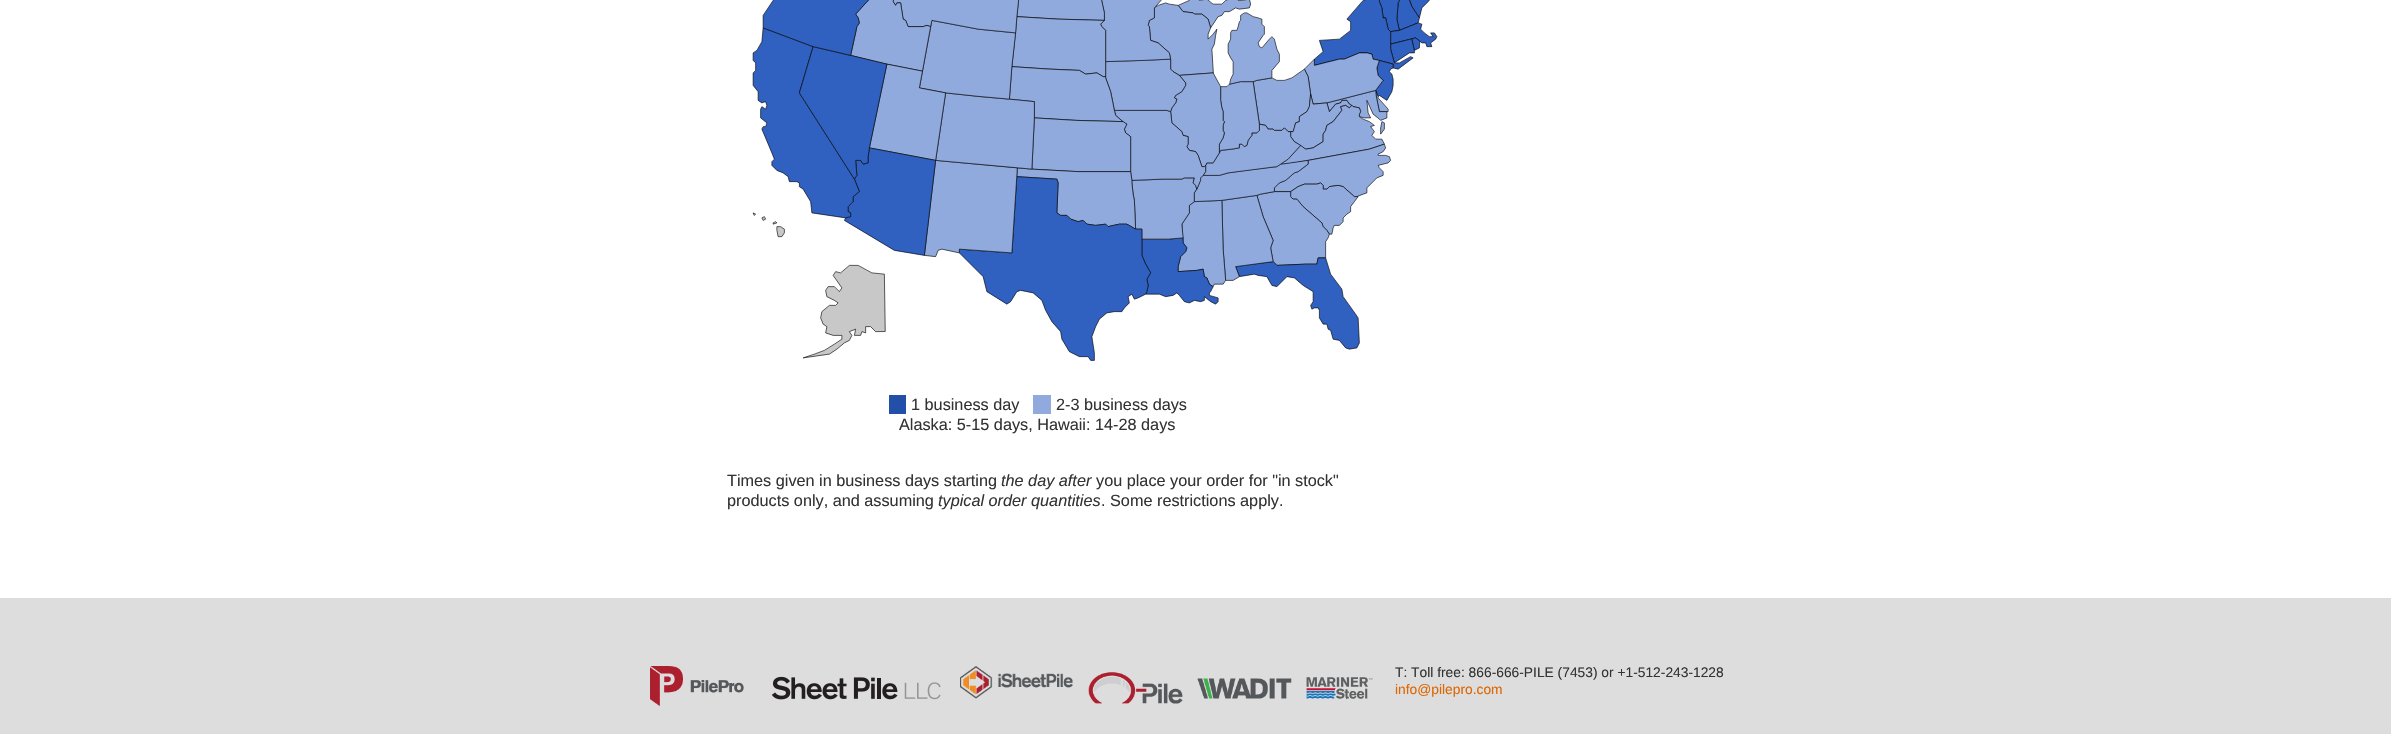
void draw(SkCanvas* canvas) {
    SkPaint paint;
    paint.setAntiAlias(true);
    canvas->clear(0xFFFFFFFF);
    canvas->drawImageRect(SkImages::DeferredFromEncodedData(SkData::MakeFromFileName("img1.png")), SkRect::MakeXYWH(752, 0, 686, 361), SkSamplingOptions());
    paint.setColor(0xFF2250A9);
    canvas->drawRect(SkRect::MakeXYWH(889, 395, 17, 19), paint);
    SkFont font1(fontMgr->matchFamilyStyle("Liberation Sans", SkFontStyle::Normal()), 16.25f);
    font1.setSubpixel(true);
    paint.setColor(0xFF333333);
    canvas->drawString("1 business day", 911, 410, font1, paint);
    paint.setColor(0xFF90AADE);
    canvas->drawRect(SkRect::MakeXYWH(1033, 395, 18, 19), paint);
    paint.setColor(0xFF333333);
    canvas->drawString("2-3 business days", 1056, 410, font1, paint);
    canvas->drawString("Alaska: 5-15 days, Hawaii: 14-28 days", 899, 430, font1, paint);
    canvas->drawString("Times given in business days starting", 727, 486, font1, paint);
    SkFont font2(fontMgr->matchFamilyStyle("Liberation Sans", SkFontStyle::Italic()), 16.25f);
    font2.setSubpixel(true);
    canvas->drawString("the day after", 1001, 486, font2, paint);
    canvas->drawString("you place your order for \"in stock\"", 1096, 486, font1, paint);
    canvas->drawString("products only, and assuming", 727, 506, font1, paint);
    canvas->drawString("typical order quantities", 938, 506, font2, paint);
    canvas->drawString(". Some restrictions apply.", 1101, 506, font1, paint);
    paint.setColor(0xFFDDDDDD);
    canvas->drawRect(SkRect::MakeXYWH(0, 598, 2391, 136), paint);
    canvas->drawImageRect(SkImages::DeferredFromEncodedData(SkData::MakeFromFileName("img2.png")), SkRect::MakeXYWH(650, 666, 94, 40), SkSamplingOptions());
    canvas->drawImageRect(SkImages::DeferredFromEncodedData(SkData::MakeFromFileName("img3.png")), SkRect::MakeXYWH(771, 676, 170, 24), SkSamplingOptions());
    canvas->drawImageRect(SkImages::DeferredFromEncodedData(SkData::MakeFromFileName("img4.png")), SkRect::MakeXYWH(960, 666, 113, 33), SkSamplingOptions());
    canvas->drawImageRect(SkImages::DeferredFromEncodedData(SkData::MakeFromFileName("img5.png")), SkRect::MakeXYWH(1088, 672, 95, 32), SkSamplingOptions());
    canvas->drawImageRect(SkImages::DeferredFromEncodedData(SkData::MakeFromFileName("img6.png")), SkRect::MakeXYWH(1197, 678, 95, 21), SkSamplingOptions());
    canvas->drawImageRect(SkImages::DeferredFromEncodedData(SkData::MakeFromFileName("img7.png")), SkRect::MakeXYWH(1306, 677, 67, 22), SkSamplingOptions());
    SkFont font3(fontMgr->matchFamilyStyle("Liberation Sans", SkFontStyle::Normal()), 13.8f);
    font3.setSubpixel(true);
    paint.setColor(0xFF333333);
    canvas->drawString("T: Toll free: 866-666-PILE (7453) or +1-512-243-1228", 1395, 677, font3, paint);
    paint.setColor(0xFFDD6600);
    canvas->drawString("info@pilepro.com", 1395, 694, font3, paint);
}
